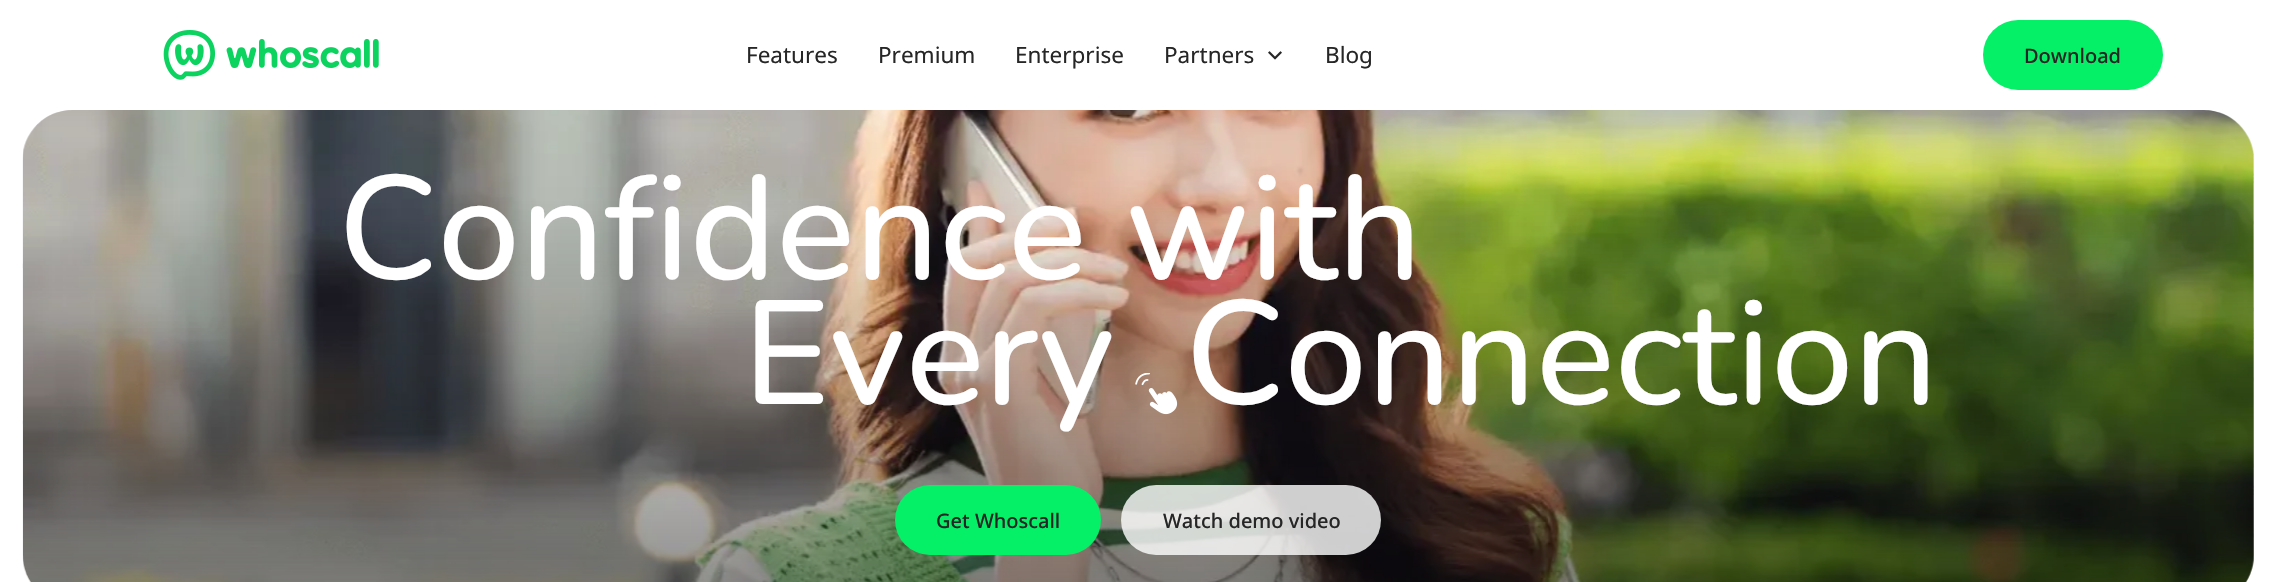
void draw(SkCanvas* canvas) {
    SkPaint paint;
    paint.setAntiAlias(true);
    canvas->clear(0xFFFFFFFF);
    canvas->drawImageRect(SkImages::DeferredFromEncodedData(SkData::MakeFromFileName("img1.png")), SkRect::MakeXYWH(163, 30, 216, 50), SkSamplingOptions());
    SkFont font1(fontMgr->matchFamilyStyle("Noto Sans", SkFontStyle::Normal()), 22.5f);
    font1.setSubpixel(true);
    paint.setColor(0xFF262626);
    canvas->drawString("Features", 746, 63, font1, paint);
    canvas->drawString("Premium", 878, 63, font1, paint);
    canvas->drawString("Enterprise", 1015, 63, font1, paint);
    canvas->drawString("Partners", 1164, 63, font1, paint);
    canvas->drawImageRect(SkImages::DeferredFromEncodedData(SkData::MakeFromFileName("img2.png")), SkRect::MakeXYWH(1268, 51, 14, 9), SkSamplingOptions());
    canvas->drawString("Blog", 1325, 63, font1, paint);
    paint.setColor(0xFF05F067);
    canvas->drawRoundRect(SkRect::MakeXYWH(1983, 20, 180, 70), 35, 35, paint);
    SkFont font2(fontMgr->matchFamilyStyle("Noto Sans", SkFontStyle(500, SkFontStyle::kNormal_Width, SkFontStyle::kUpright_Slant)), 20);
    font2.setSubpixel(true);
    paint.setColor(0xFF262626);
    canvas->drawString("Download", 2024, 63, font2, paint);
    canvas->drawImageRect(SkImages::DeferredFromEncodedData(SkData::MakeFromFileName("img3.png")), SkRect::MakeXYWH(22, 110, 2232, 472), SkSamplingOptions());
    canvas->drawImageRect(SkImages::DeferredFromEncodedData(SkData::MakeFromFileName("img4.png")), SkRect::MakeXYWH(23, 110, 2231, 472), SkSamplingOptions());
    {
        const SkColor colors[] = {0x00000000, 0x73000000, 0xFF000000};
        const float stops[] = {0.18f, 1, 1};
        const SkPoint ends[] = {{1138, 110}, {1138, 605}};
        paint.setShader(SkGradientShader::MakeLinear(ends, colors, stops, 3, SkTileMode::kClamp));
        paint.setAlpha(255);
    }
    canvas->drawRoundRect(SkRect::MakeXYWH(23, 110, 2231, 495), 50, 50, paint);
    SkFont font3(fontMgr->matchFamilyStyle("Nunito", SkFontStyle(500, SkFontStyle::kNormal_Width, SkFontStyle::kUpright_Slant)), 147.5f);
    font3.setSubpixel(true);
    paint.setShader(nullptr);
    paint.setColor(0xFFFFFFFF);
    canvas->drawString("Confidence with", 338, 279, font3, paint);
    canvas->drawString("Every", 743, 404, font3, paint);
    canvas->drawImageRect(SkImages::DeferredFromEncodedData(SkData::MakeFromFileName("img5.png")), SkRect::MakeXYWH(1135, 373, 43, 42), SkSamplingOptions());
    canvas->drawString("Connection", 1185, 404, font3, paint);
    paint.setColor(0xFF05F067);
    canvas->drawRoundRect(SkRect::MakeXYWH(895, 485, 206, 70), 35, 35, paint);
    paint.setColor(0xFF262626);
    canvas->drawString("Get Whoscall", 936, 528, font2, paint);
    paint.setColor(0xCCFFFFFF);
    canvas->drawRoundRect(SkRect::MakeXYWH(1121, 485, 260, 70), 35, 35, paint);
    paint.setColor(0xFF262626);
    canvas->drawString("Watch demo video", 1163, 528, font2, paint);
}
